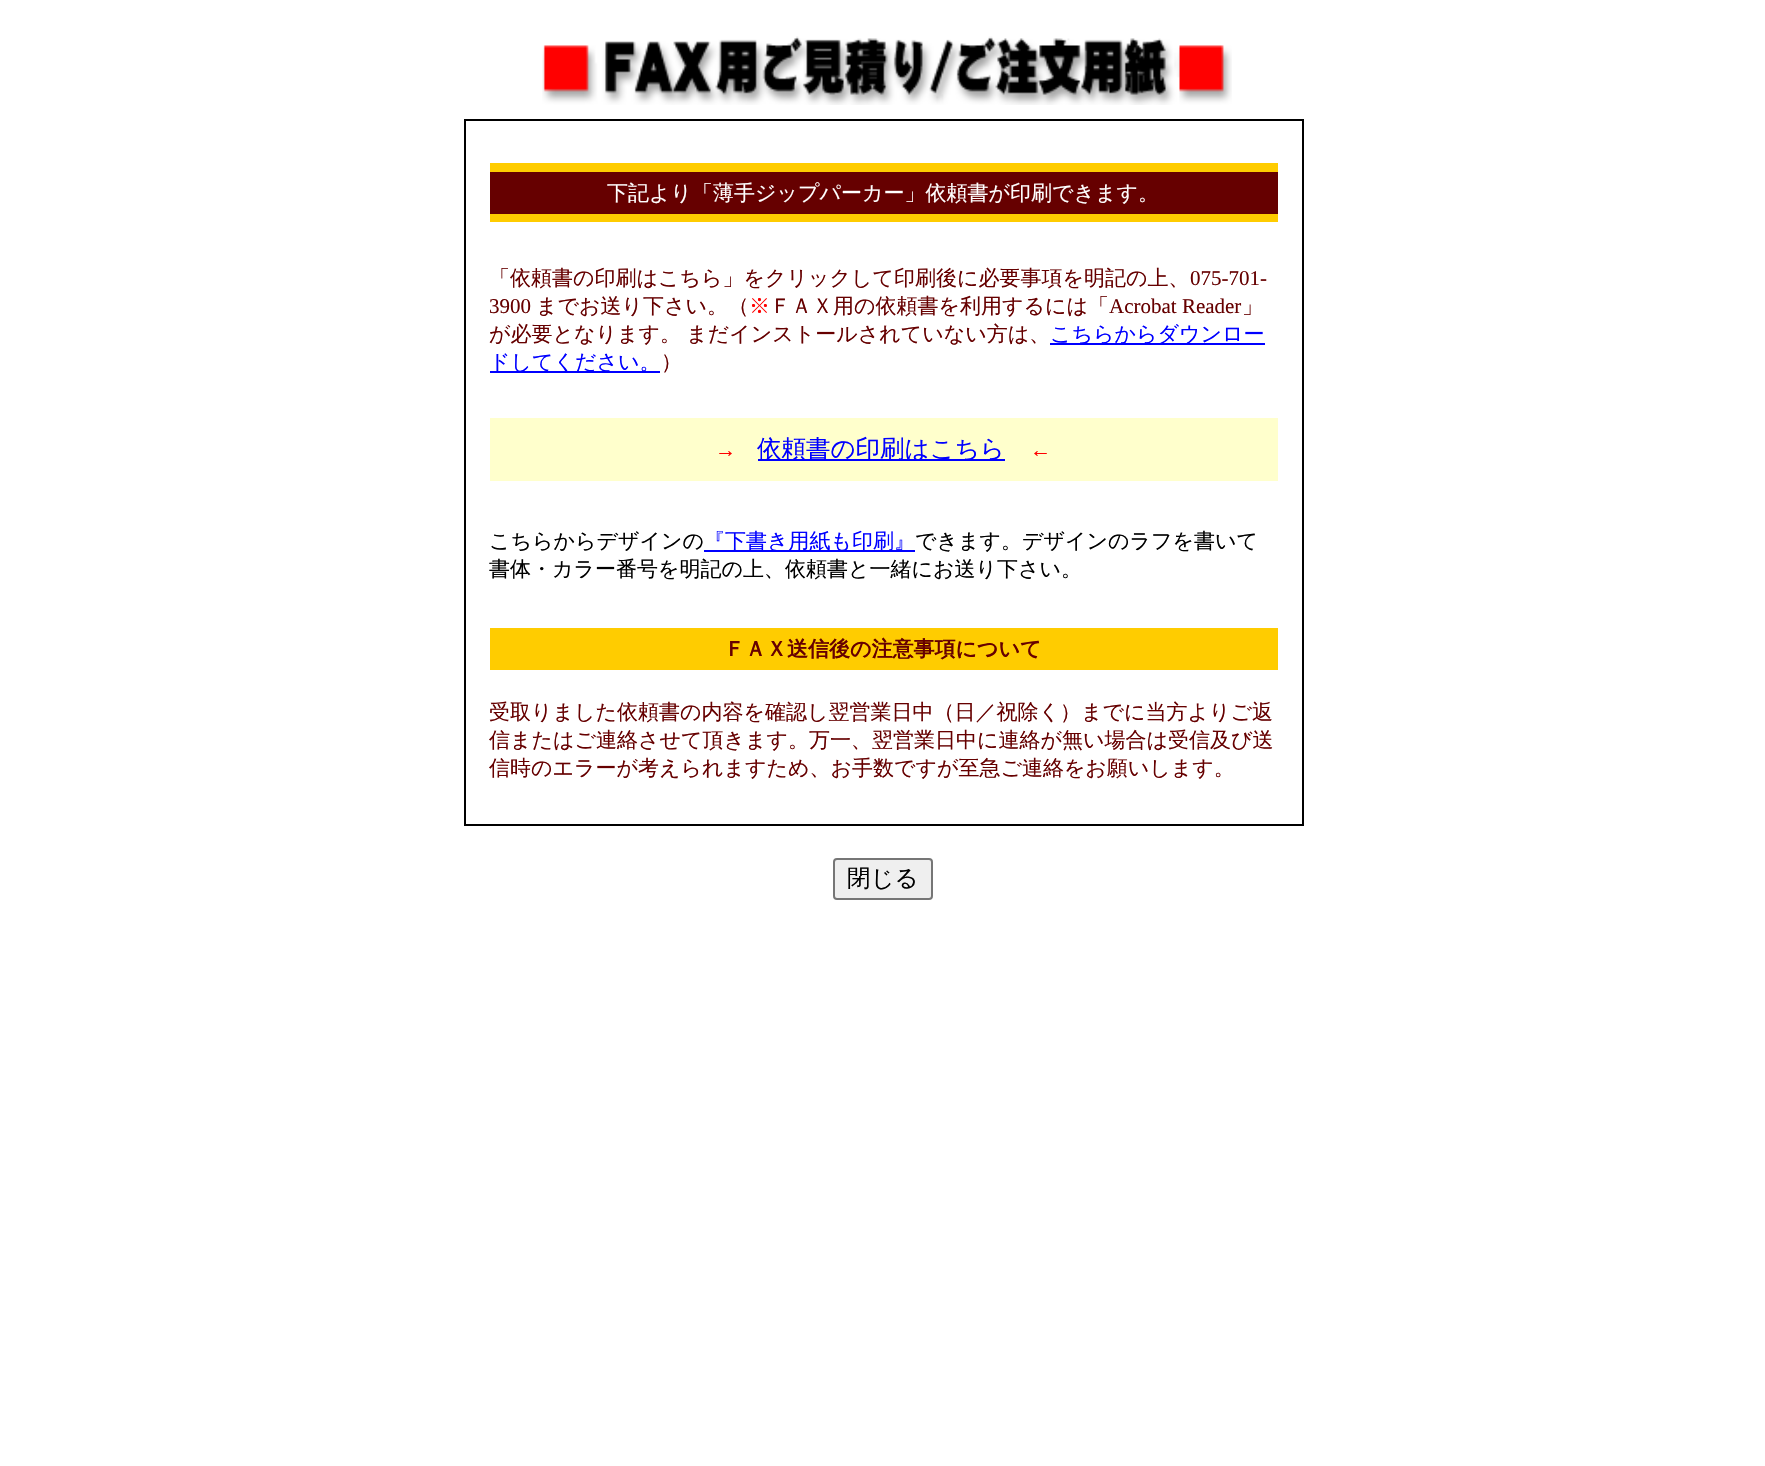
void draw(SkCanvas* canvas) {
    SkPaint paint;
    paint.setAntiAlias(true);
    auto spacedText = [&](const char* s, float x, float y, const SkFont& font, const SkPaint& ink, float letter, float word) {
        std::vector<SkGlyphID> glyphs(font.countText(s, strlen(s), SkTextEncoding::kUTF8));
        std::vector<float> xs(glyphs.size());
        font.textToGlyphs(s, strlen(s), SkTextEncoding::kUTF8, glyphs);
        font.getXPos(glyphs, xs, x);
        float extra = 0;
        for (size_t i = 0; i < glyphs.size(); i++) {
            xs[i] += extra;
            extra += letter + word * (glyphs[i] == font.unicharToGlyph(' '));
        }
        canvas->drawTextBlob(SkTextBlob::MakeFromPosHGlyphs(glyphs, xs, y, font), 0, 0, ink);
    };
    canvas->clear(0xFFFFFFFF);
    canvas->drawImageRect(SkImages::DeferredFromEncodedData(SkData::MakeFromFileName("img1.png")), SkRect::MakeXYWH(542, 36, 690, 69), SkSamplingOptions());
    paint.setColor(0xFF000000);
    canvas->drawRect(SkRect::MakeXYWH(464, 119, 840, 707), paint);
    paint.setColor(0xFFFFFFFF);
    canvas->drawRect(SkRect::MakeXYWH(466, 121, 836, 703), paint);
    paint.setColor(0xFFFFCC00);
    canvas->drawRect(SkRect::MakeXYWH(490, 163, 788, 9), paint);
    paint.setColor(0xFF660000);
    canvas->drawRect(SkRect::MakeXYWH(490, 172, 788, 42), paint);
    SkFont font1(fontMgr->matchFamilyStyle("WenQuanYi Zen Hei", SkFontStyle(500, SkFontStyle::kNormal_Width, SkFontStyle::kUpright_Slant)), 21);
    font1.setSubpixel(true);
    paint.setColor(0xFFFFFFFF);
    canvas->drawString("下記より「薄手ジップパーカー」依頼書が印刷できます。", 607, 200, font1, paint);
    paint.setColor(0xFFFFCC00);
    canvas->drawRect(SkRect::MakeXYWH(490, 214, 788, 8), paint);
    paint.setColor(0xFF660000);
    canvas->drawString("「依頼書の印刷はこちら」をクリックして印刷後に必要事項を明記の上、", 489, 285, font1, paint);
    SkFont font2(fontMgr->matchFamilyStyle("Liberation Serif", SkFontStyle::Normal()), 21);
    font2.setSubpixel(true);
    canvas->drawString("075-701-", 1190, 285, font2, paint);
    canvas->drawString("3900", 489, 313, font2, paint);
    canvas->drawString("までお送り下さい。（", 536, 313, font1, paint);
    paint.setColor(0xFFFF0000);
    canvas->drawString("※", 749, 313, font1, paint);
    paint.setColor(0xFF660000);
    canvas->drawString("ＦＡＸ用の依頼書を利用するには「", 770, 313, font1, paint);
    canvas->drawString("Acrobat Reader", 1109, 313, font2, paint);
    canvas->drawString("」", 1242, 313, font1, paint);
    spacedText("が必要となります。 まだインストールされていない方は、", 489, 341, font1, paint, 0, -1);
    paint.setColor(0xFF0000FF);
    canvas->drawRect(SkRect::MakeXYWH(1050, 343, 215, 2), paint);
    canvas->drawString("こちらからダウンロー", 1050, 341, font1, paint);
    canvas->drawRect(SkRect::MakeXYWH(490, 371, 170, 2), paint);
    canvas->drawString("ドしてください。", 489, 369, font1, paint);
    paint.setColor(0xFF660000);
    canvas->drawString("）", 661, 369, font1, paint);
    paint.setColor(0xFFFFFFCC);
    canvas->drawRect(SkRect::MakeXYWH(490, 418, 788, 63), paint);
    paint.setColor(0xFFFF0000);
    canvas->drawString("→", 715, 457, font2, paint);
    paint.setColor(0xFF0000FF);
    canvas->drawRect(SkRect::MakeXYWH(758, 459, 247, 2), paint);
    SkFont font3(fontMgr->matchFamilyStyle("WenQuanYi Zen Hei", SkFontStyle(500, SkFontStyle::kNormal_Width, SkFontStyle::kUpright_Slant)), 24.5f);
    font3.setSubpixel(true);
    canvas->drawString("依頼書の印刷はこちら", 757, 457, font3, paint);
    paint.setColor(0xFFFF0000);
    canvas->drawString("←", 1030, 457, font2, paint);
    paint.setColor(0xFF000000);
    canvas->drawString("こちらからデザインの", 489, 548, font1, paint);
    paint.setColor(0xFF0000FF);
    canvas->drawRect(SkRect::MakeXYWH(704, 550, 211, 2), paint);
    canvas->drawString("『下書き用紙も印刷』", 704, 548, font1, paint);
    paint.setColor(0xFF000000);
    canvas->drawString("できます。デザインのラフを書いて", 915, 548, font1, paint);
    canvas->drawString("書体・カラー番号を明記の上、依頼書と一緒にお送り下さい。", 489, 576, font1, paint);
    paint.setColor(0xFFFFCC00);
    canvas->drawRect(SkRect::MakeXYWH(490, 628, 788, 42), paint);
    SkFont font4(fontMgr->matchFamilyStyle("WenQuanYi Zen Hei", SkFontStyle::Bold()), 21);
    font4.setSubpixel(true);
    paint.setColor(0xFF660000);
    canvas->drawString("ＦＡＸ送信後の注意事項について", 724, 656, font4, paint);
    canvas->drawString("受取りました依頼書の内容を確認し翌営業日中（日／祝除く）までに当方よりご返", 489, 719, font1, paint);
    canvas->drawString("信またはご連絡させて頂きます。万一、翌営業日中に連絡が無い場合は受信及び送", 489, 747, font1, paint);
    canvas->drawString("信時のエラーが考えられますため、お手数ですが至急ご連絡をお願いします。", 489, 775, font1, paint);
    paint.setColor(0xFFEFEFEF);
    canvas->drawRoundRect(SkRect::MakeXYWH(834, 859, 98, 40), 3, 3, paint);
    paint.setStyle(SkPaint::kStroke_Style);
    paint.setStrokeWidth(2);
    paint.setColor(0xFF767676);
    canvas->drawRoundRect(SkRect::MakeXYWH(834, 859, 98, 40), 3, 3, paint);
    SkFont font5(fontMgr->matchFamilyStyle("WenQuanYi Zen Hei", SkFontStyle(500, SkFontStyle::kNormal_Width, SkFontStyle::kUpright_Slant)), 23.5f);
    font5.setSubpixel(true);
    paint.setStyle(SkPaint::kFill_Style);
    paint.setColor(0xFF000000);
    canvas->drawString("閉じる", 847, 886, font5, paint);
}
